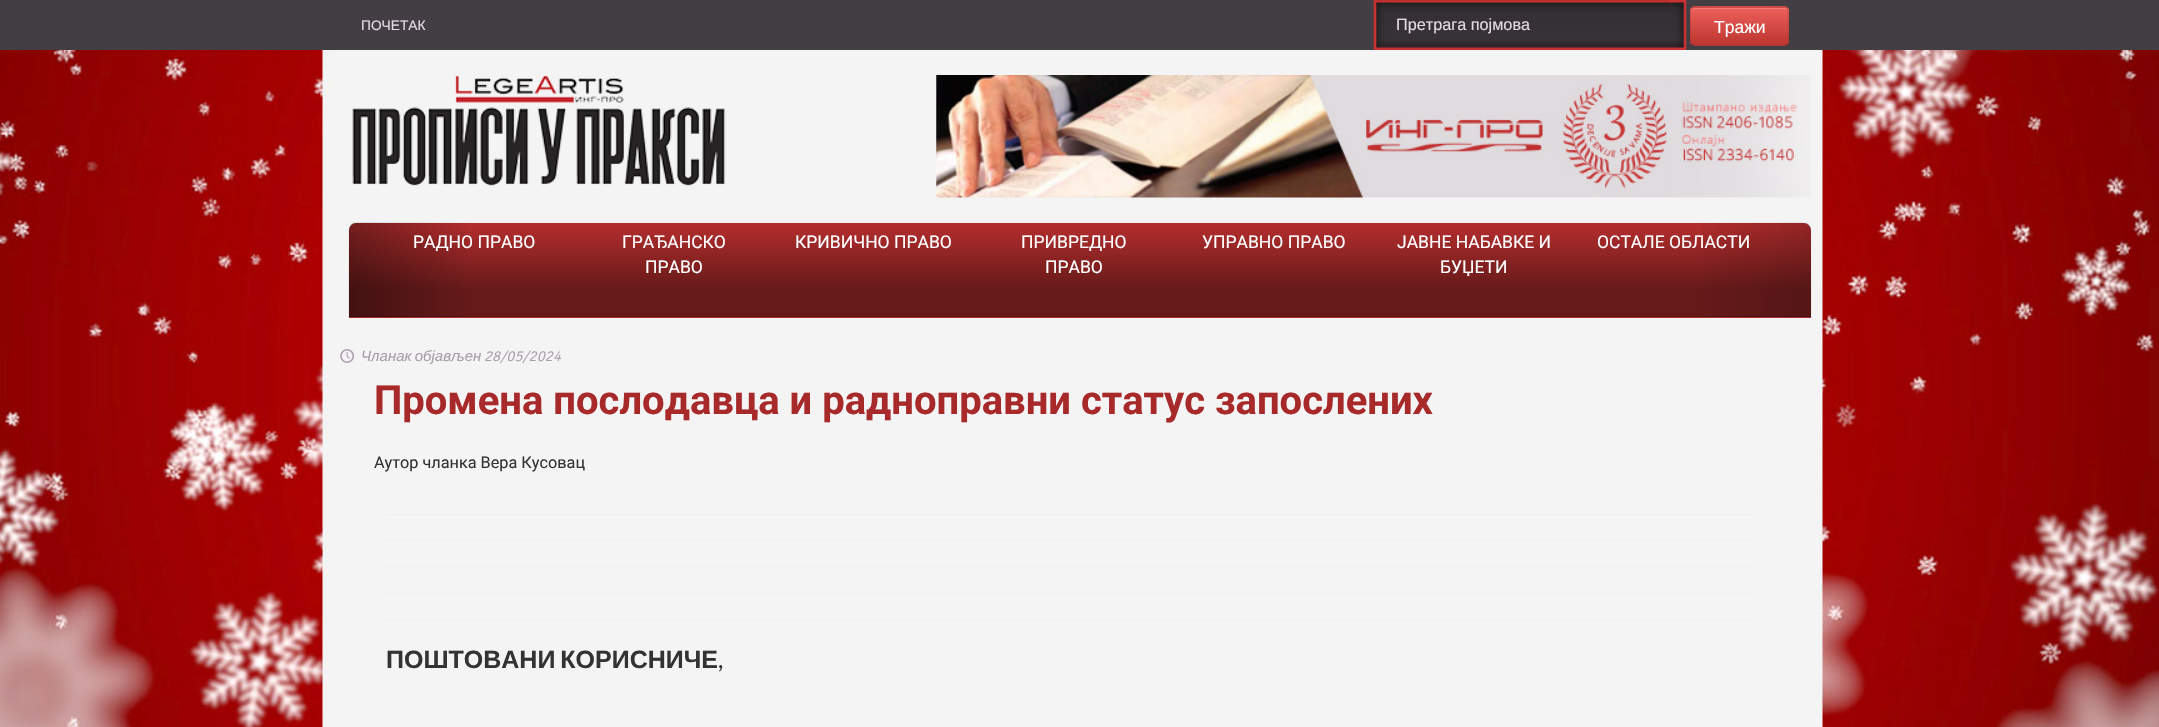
void draw(SkCanvas* canvas) {
    SkPaint paint;
    paint.setAntiAlias(true);
    auto spacedText = [&](const char* s, float x, float y, const SkFont& font, const SkPaint& ink, float letter, float word) {
        std::vector<SkGlyphID> glyphs(font.countText(s, strlen(s), SkTextEncoding::kUTF8));
        std::vector<float> xs(glyphs.size());
        font.textToGlyphs(s, strlen(s), SkTextEncoding::kUTF8, glyphs);
        font.getXPos(glyphs, xs, x);
        float extra = 0;
        for (size_t i = 0; i < glyphs.size(); i++) {
            xs[i] += extra;
            extra += letter + word * (glyphs[i] == font.unicharToGlyph(' '));
        }
        canvas->drawTextBlob(SkTextBlob::MakeFromPosHGlyphs(glyphs, xs, y, font), 0, 0, ink);
    };
    canvas->clear(0xFFFFFFFF);
    canvas->drawImageRect(SkImages::DeferredFromEncodedData(SkData::MakeFromFileName("img1.png")), SkRect::MakeXYWH(0, 50, 2159, 677), SkSamplingOptions());
    paint.setColor(0xFF433E43);
    canvas->drawRect(SkRect::MakeXYWH(0, 0, 2159, 50), paint);
    SkFont font1(fontMgr->matchFamilyStyle("Liberation Sans", SkFontStyle::Normal()), 13.75f);
    font1.setSubpixel(true);
    paint.setColor(0xFFE4D8E4);
    canvas->drawString("ПОЧЕТАК", 361, 30, font1, paint);
    canvas->drawImageRect(SkImages::DeferredFromEncodedData(SkData::MakeFromFileName("img2.png")), SkRect::MakeXYWH(1373, 0, 314, 50), SkSamplingOptions());
    paint.setColor(0xFFBA2E2E);
    canvas->drawPath(SkPathBuilder().moveTo(1379, 1).lineTo(1666, 1).cubicTo(1669, 1, 1671, 3, 1671, 6).lineTo(1671, 5).cubicTo(1671, 2, 1669, 0, 1666, 0).lineTo(1379, 0).cubicTo(1376, 0, 1374, 2, 1374, 5).lineTo(1374, 6).cubicTo(1374, 3, 1376, 1, 1379, 1).close().detach(), paint);
    SkFont font2(fontMgr->matchFamilyStyle("Liberation Sans", SkFontStyle::Normal()), 16.25f);
    font2.setSubpixel(true);
    paint.setColor(0xFFE4D8E4);
    canvas->drawString("Претрага појмова", 1396, 30, font2, paint);
    paint.setColor(0xFFDA4F49);
    canvas->drawRoundRect(SkRect::MakeXYWH(1690, 6, 99, 40), 5, 5, paint);
    canvas->save();
    canvas->clipPath(SkPathBuilder().moveTo(1695, 6).lineTo(1784, 6).cubicTo(1787, 6, 1789, 8, 1789, 11).lineTo(1789, 41).cubicTo(1789, 44, 1787, 46, 1784, 46).lineTo(1695, 46).cubicTo(1692, 46, 1690, 44, 1690, 41).lineTo(1690, 11).cubicTo(1690, 8, 1692, 6, 1695, 6).close().detach(), true);
    {
        const SkColor colors[] = {0xFFEE5F5B, 0xFFBD362F};
        const float stops[] = {0, 1};
        const SkPoint ends[] = {{1739, 7.5f}, {1739, 45}};
        paint.setShader(SkGradientShader::MakeLinear(ends, colors, stops, 2, SkTileMode::kClamp));
        paint.setAlpha(255);
    }
    canvas->drawRect(SkRect::MakeXYWH(1690, 8, 99, 37), paint);
    canvas->restore();
    paint.setShader(nullptr);
    paint.setColor(0xFFF17E7B);
    canvas->drawPath(SkPathBuilder().moveTo(1695, 9).lineTo(1784, 9).cubicTo(1786, 9, 1788, 10, 1788, 12).cubicTo(1788, 10, 1786, 8, 1784, 8).lineTo(1695, 8).cubicTo(1693, 8, 1691, 10, 1691, 12).cubicTo(1691, 10, 1693, 9, 1695, 9).close().detach(), paint);
    paint.setStyle(SkPaint::kStroke_Style);
    paint.setStrokeWidth(1.2f);
    paint.setColor(0x40000000);
    canvas->drawPath(SkPathBuilder().moveTo(1787, 44.5f).cubicTo(1786, 45, 1785, 45.5f, 1784, 45.5f).lineTo(1695, 45.5f).cubicTo(1694, 45.5f, 1692.5f, 45, 1692, 44.5f).detach(), paint);
    paint.setColor(0x1A000000);
    canvas->drawPath(SkPathBuilder().moveTo(1692, 44.5f).cubicTo(1690, 42.5f, 1690.5f, 38.5f, 1690.5f, 36).lineTo(1690.5f, 26).cubicTo(1690.5f, 4, 1687, 7, 1710, 7).lineTo(1769, 7).cubicTo(1791.5f, 7, 1788, 4, 1788, 26).lineTo(1788, 36).cubicTo(1788, 38.5f, 1789, 42.5f, 1787, 44.5f).detach(), paint);
    SkFont font3(fontMgr->matchFamilyStyle("Liberation Sans", SkFontStyle::Normal()), 17.5f);
    font3.setSubpixel(true);
    paint.setStyle(SkPaint::kFill_Style);
    paint.setColor(0xFFFFFFFF);
    canvas->drawString("Тражи", 1714, 33, font3, paint);
    canvas->drawImageRect(SkImages::DeferredFromEncodedData(SkData::MakeFromFileName("img3.png")), SkRect::MakeXYWH(352, 75, 374, 111), SkSamplingOptions());
    canvas->drawImageRect(SkImages::DeferredFromEncodedData(SkData::MakeFromFileName("img4.png")), SkRect::MakeXYWH(936, 75, 875, 123), SkSamplingOptions());
    paint.setColor(0xFFCE3333);
    canvas->drawPath(SkPathBuilder().moveTo(357, 223).lineTo(1803, 223).cubicTo(1807.5f, 223, 1811, 226.5f, 1811, 231).lineTo(1811, 318).lineTo(349, 318).lineTo(349, 231).cubicTo(349, 226.5f, 352.5f, 223, 357, 223).close().detach(), paint);
    canvas->drawImageRect(SkImages::DeferredFromEncodedData(SkData::MakeFromFileName("img5.png")), SkRect::MakeXYWH(348, 222, 1464, 96), SkSamplingOptions());
    canvas->drawImageRect(SkImages::DeferredFromEncodedData(SkData::MakeFromFileName("img6.png")), SkRect::MakeXYWH(1702, 222, 109, 96), SkSamplingOptions());
    canvas->drawImageRect(SkImages::DeferredFromEncodedData(SkData::MakeFromFileName("img7.png")), SkRect::MakeXYWH(348, 222, 119, 96), SkSamplingOptions());
    paint.setColor(0x33000000);
    canvas->drawRect(SkRect::MakeXYWH(349, 316, 1462, 1), paint);
    SkFont font4(fontMgr->matchFamilyStyle("Roboto", SkFontStyle::Normal()), 17.5f);
    font4.setSubpixel(true);
    paint.setColor(0xFFFFFFFF);
    canvas->drawString("РАДНО ПРАВО", 413, 248, font4, paint);
    canvas->drawString("ГРАЂАНСКО", 622, 248, font4, paint);
    canvas->drawString("ПРАВО", 645, 273, font4, paint);
    canvas->drawString("КРИВИЧНО ПРАВО", 795, 248, font4, paint);
    canvas->drawString("ПРИВРЕДНО", 1021, 248, font4, paint);
    canvas->drawString("ПРАВО", 1045, 273, font4, paint);
    canvas->drawString("УПРАВНО ПРАВО", 1202, 248, font4, paint);
    canvas->drawString("ЈАВНЕ НАБАВКЕ И", 1397, 248, font4, paint);
    canvas->drawString("БУЏЕТИ", 1440, 273, font4, paint);
    canvas->drawString("ОСТАЛЕ ОБЛАСТИ", 1597, 248, font4, paint);
    canvas->drawImageRect(SkImages::DeferredFromEncodedData(SkData::MakeFromFileName("img8.png")), SkRect::MakeXYWH(340, 349, 14, 14), SkSamplingOptions());
    SkFont font5(fontMgr->matchFamilyStyle("Liberation Sans", SkFontStyle::Italic()), 15);
    font5.setSubpixel(true);
    paint.setColor(0xFFA99CAB);
    spacedText("Чланак објављен", 361, 361, font5, paint, 0, -1);
    SkFont font6(fontMgr->matchFamilyStyle("Signika", SkFontStyle(300, SkFontStyle::kNormal_Width, SkFontStyle::kItalic_Slant)), 15);
    font6.setSubpixel(true);
    canvas->drawString("28/05/2024", 484, 361, font6, paint);
    SkFont font7(fontMgr->matchFamilyStyle("Roboto", SkFontStyle::Bold()), 40);
    font7.setSubpixel(true);
    paint.setColor(0xFFA82929);
    canvas->drawString("Промена послодавца и радноправни статус запослених", 374, 414, font7, paint);
    SkFont font8(fontMgr->matchFamilyStyle("Roboto", SkFontStyle::Normal()), 16.25f);
    font8.setSubpixel(true);
    paint.setColor(0xFF333333);
    canvas->drawString("Аутор чланка Вера Кусовац", 374, 468, font8, paint);
    paint.setColor(0xFFEEEEEE);
    canvas->drawRect(SkRect::MakeXYWH(386, 514, 1368, 1), paint);
    canvas->drawRect(SkRect::MakeXYWH(386, 540, 1368, 1), paint);
    canvas->drawRect(SkRect::MakeXYWH(386, 566, 1368, 1), paint);
    canvas->drawRect(SkRect::MakeXYWH(386, 593, 1368, 1), paint);
    canvas->drawRect(SkRect::MakeXYWH(386, 619, 1368, 1), paint);
    SkFont font9(fontMgr->matchFamilyStyle("Liberation Sans", SkFontStyle::Bold()), 25);
    font9.setSubpixel(true);
    paint.setColor(0xFF333333);
    spacedText("ПОШТОВАНИ КОРИСНИЧЕ", 386, 668, font9, paint, 0, -2);
    SkFont font10(fontMgr->matchFamilyStyle("Lato", SkFontStyle::Normal()), 25);
    font10.setSubpixel(true);
    canvas->drawString(",", 718, 668, font10, paint);
}
